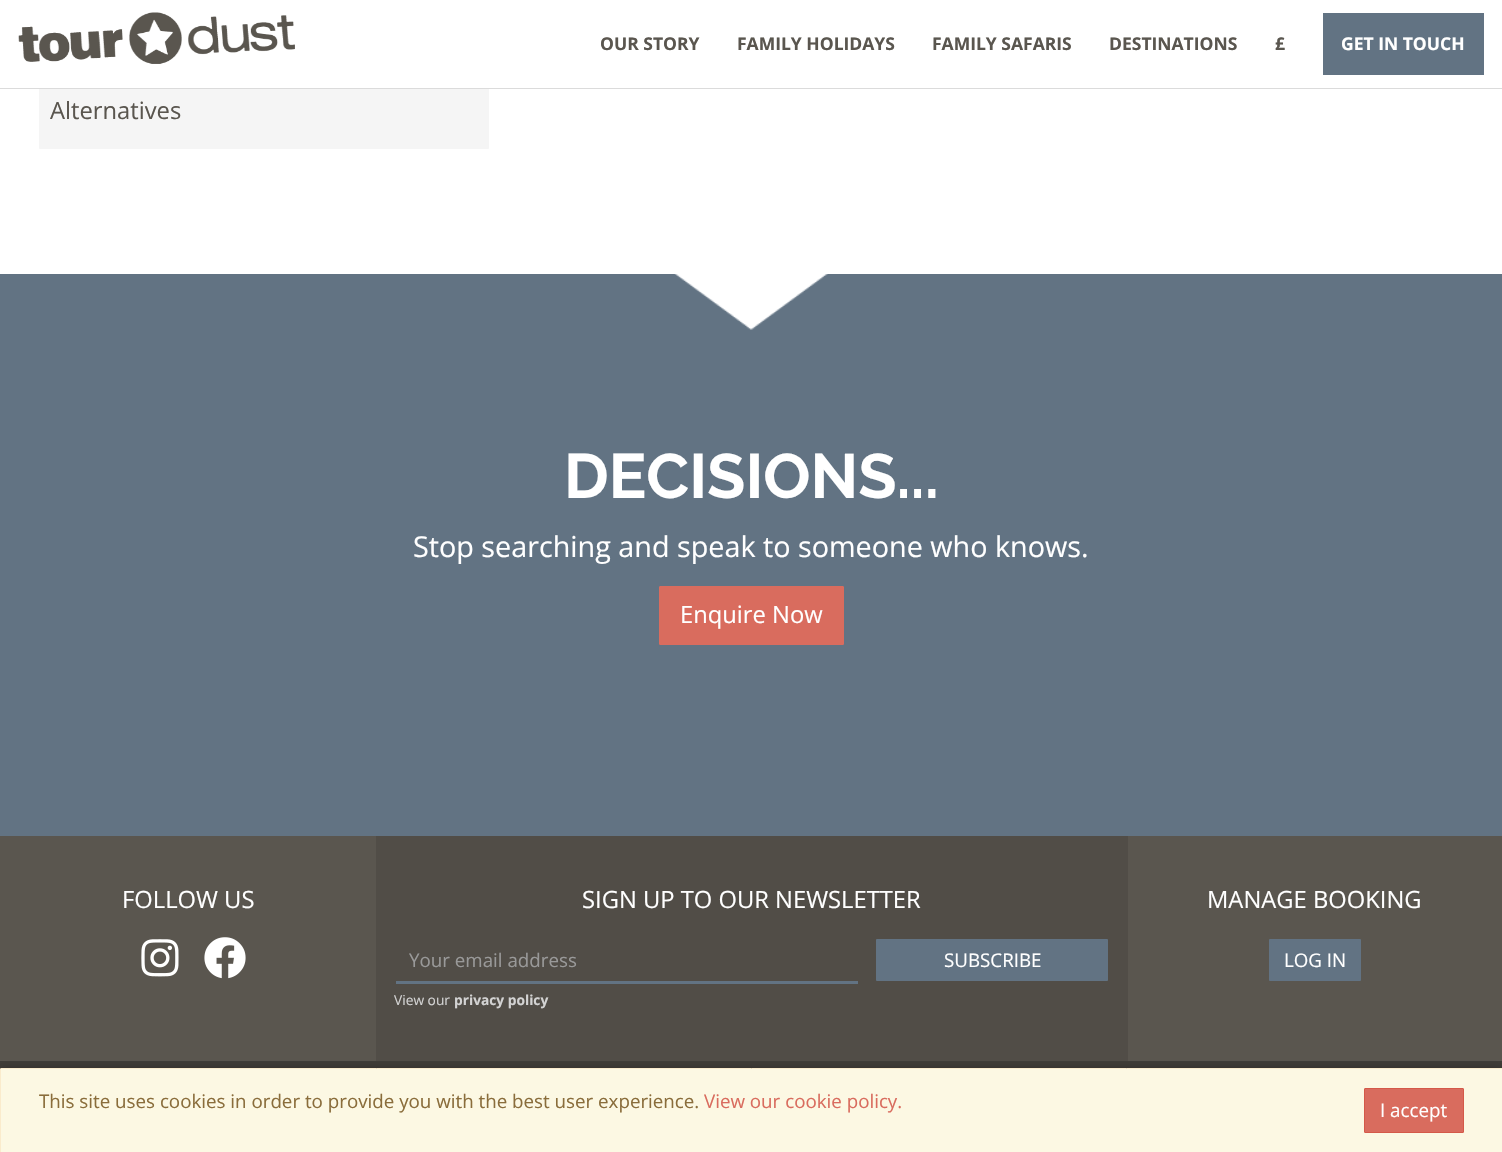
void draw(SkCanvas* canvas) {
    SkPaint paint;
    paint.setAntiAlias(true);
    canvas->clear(0xFFFFFFFF);
    paint.setColor(0xFFF5F5F5);
    canvas->drawRoundRect(SkRect::MakeXYWH(39, 46, 450, 103), 1, 1, paint);
    paint.setColor(0xFFFFFFFF);
    canvas->drawRect(SkRect::MakeXYWH(39, 46, 450, 42), paint);
    paint.setColor(0xFFDBDBDB);
    canvas->drawRect(SkRect::MakeXYWH(0, 88, 1502, 1), paint);
    canvas->drawImageRect(SkImages::DeferredFromEncodedData(SkData::MakeFromFileName("img1.png")), SkRect::MakeXYWH(18, 12, 277, 52), SkSamplingOptions());
    SkFont font1(fontMgr->matchFamilyStyle("Open Sans", SkFontStyle::Bold()), 17.5f);
    font1.setSubpixel(true);
    paint.setColor(0xFF5A564F);
    canvas->drawString("OUR STORY", 600, 50, font1, paint);
    canvas->drawString("FAMILY HOLIDAYS", 737, 50, font1, paint);
    canvas->drawString("FAMILY SAFARIS", 932, 50, font1, paint);
    canvas->drawString("DESTINATIONS", 1109, 50, font1, paint);
    canvas->drawString("£", 1275, 50, font1, paint);
    paint.setColor(0xFF627383);
    canvas->drawRect(SkRect::MakeXYWH(1323, 13, 161, 62), paint);
    paint.setColor(0xFFFFFFFF);
    canvas->drawString("GET IN TOUCH", 1341, 50, font1, paint);
    SkFont font2(fontMgr->matchFamilyStyle("Open Sans", SkFontStyle::Normal()), 23.75f);
    font2.setSubpixel(true);
    paint.setColor(0xFF5A564F);
    canvas->drawString("Alternatives", 50, 119, font2, paint);
    paint.setColor(0xFF627383);
    canvas->drawRect(SkRect::MakeXYWH(0, 274, 1502, 562), paint);
    canvas->drawImageRect(SkImages::DeferredFromEncodedData(SkData::MakeFromFileName("img2.png")), SkRect::MakeXYWH(674, 274, 154, 56), SkSamplingOptions());
    SkFont font3(fontMgr->matchFamilyStyle("Raleway", SkFontStyle::Bold()), 62.5f);
    font3.setSubpixel(true);
    paint.setColor(0xFFFFFFFF);
    canvas->drawString("DECISIONS...", 564, 498, font3, paint);
    SkFont font4(fontMgr->matchFamilyStyle("Open Sans", SkFontStyle::Normal()), 28.75f);
    font4.setSubpixel(true);
    canvas->drawString("Stop searching and speak to someone who knows.", 413, 557, font4, paint);
    paint.setColor(0xFFD96C5E);
    canvas->drawRoundRect(SkRect::MakeXYWH(659.5f, 586.5f, 184, 58), 0.5f, 0.5f, paint);
    paint.setStyle(SkPaint::kStroke_Style);
    paint.setStrokeWidth(1);
    canvas->drawRoundRect(SkRect::MakeXYWH(659.5f, 586.5f, 184, 58), 0.5f, 0.5f, paint);
    paint.setStyle(SkPaint::kFill_Style);
    paint.setColor(0xFFFFFFFF);
    canvas->drawString("Enquire Now", 680, 623, font2, paint);
    paint.setColor(0xFF5A564F);
    canvas->drawRect(SkRect::MakeXYWH(0, 836, 1502, 225), paint);
    paint.setColor(0xFFFFFFFF);
    canvas->drawString("FOLLOW US", 122, 908, font2, paint);
    canvas->drawImageRect(SkImages::DeferredFromEncodedData(SkData::MakeFromFileName("img3.png")), SkRect::MakeXYWH(141, 939, 38, 38), SkSamplingOptions());
    canvas->drawImageRect(SkImages::DeferredFromEncodedData(SkData::MakeFromFileName("img4.png")), SkRect::MakeXYWH(204, 937, 42, 42), SkSamplingOptions());
    paint.setColor(0xFF514D47);
    canvas->drawRect(SkRect::MakeXYWH(376, 836, 752, 225), paint);
    paint.setColor(0xFFFFFFFF);
    canvas->drawString("SIGN UP TO OUR NEWSLETTER", 582, 908, font2, paint);
    paint.setColor(0xFF627383);
    canvas->drawRect(SkRect::MakeXYWH(396, 981, 462, 3), paint);
    SkFont font5(fontMgr->matchFamilyStyle("Open Sans", SkFontStyle::Normal()), 18.75f);
    font5.setSubpixel(true);
    paint.setColor(0xFF999999);
    canvas->drawString("Your email address", 409, 967, font5, paint);
    paint.setColor(0xFF627383);
    canvas->drawRoundRect(SkRect::MakeXYWH(876, 939, 232, 42), 1, 1, paint);
    paint.setColor(0xFFFFFFFF);
    canvas->drawString("SUBSCRIBE", 944, 967, font5, paint);
    SkFont font6(fontMgr->matchFamilyStyle("Open Sans", SkFontStyle::Normal()), 13.75f);
    font6.setSubpixel(true);
    paint.setColor(0xFFD3D3D3);
    canvas->drawString("View our", 394, 1005, font6, paint);
    SkFont font7(fontMgr->matchFamilyStyle("Open Sans", SkFontStyle::Bold()), 13.75f);
    font7.setSubpixel(true);
    canvas->drawString("privacy policy", 454, 1005, font7, paint);
    paint.setColor(0xFFFFFFFF);
    canvas->drawString("MANAGE BOOKING", 1207, 908, font2, paint);
    paint.setColor(0xFF627383);
    canvas->drawRoundRect(SkRect::MakeXYWH(1269, 939, 92, 42), 1, 1, paint);
    paint.setColor(0xFFFFFFFF);
    canvas->drawString("LOG IN", 1284, 967, font5, paint);
    paint.setColor(0xFF403D38);
    canvas->drawRect(SkRect::MakeXYWH(0, 1061, 1502, 8), paint);
    paint.setColor(0x26000000);
    paint.setMaskFilter(SkMaskFilter::MakeBlur(kNormal_SkBlurStyle, 5));
    canvas->drawRoundRect(SkRect::MakeXYWH(0, 1069, 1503, 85), 1, 1, paint);
    paint.setMaskFilter(nullptr);
    paint.setMaskFilter(SkMaskFilter::MakeBlur(kNormal_SkBlurStyle, 4));
    canvas->drawRoundRect(SkRect::MakeXYWH(0, 1069, 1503, 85), 1, 1, paint);
    paint.setMaskFilter(nullptr);
    paint.setColor(0xFFFCF8E3);
    canvas->drawRoundRect(SkRect::MakeXYWH(0.5f, 1068.5f, 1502, 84), 0.5f, 0.5f, paint);
    paint.setStyle(SkPaint::kStroke_Style);
    paint.setColor(0xFFFAEBCC);
    canvas->drawRoundRect(SkRect::MakeXYWH(0.5f, 1068.5f, 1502, 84), 0.5f, 0.5f, paint);
    paint.setStyle(SkPaint::kFill_Style);
    paint.setColor(0xFF8A6D3B);
    canvas->drawString("This site uses cookies in order to provide you with the best user experience.", 39, 1108, font5, paint);
    paint.setColor(0xFFD96C5E);
    canvas->drawString("View our cookie policy.", 704, 1108, font5, paint);
    canvas->drawRoundRect(SkRect::MakeXYWH(1364.5f, 1088.5f, 99, 44), 0.5f, 0.5f, paint);
    paint.setStyle(SkPaint::kStroke_Style);
    paint.setColor(0xFFD45949);
    canvas->drawRoundRect(SkRect::MakeXYWH(1364.5f, 1088.5f, 99, 44), 0.5f, 0.5f, paint);
    paint.setStyle(SkPaint::kFill_Style);
    paint.setColor(0xFFFFFFFF);
    canvas->drawString("I accept", 1380, 1117, font5, paint);
}
